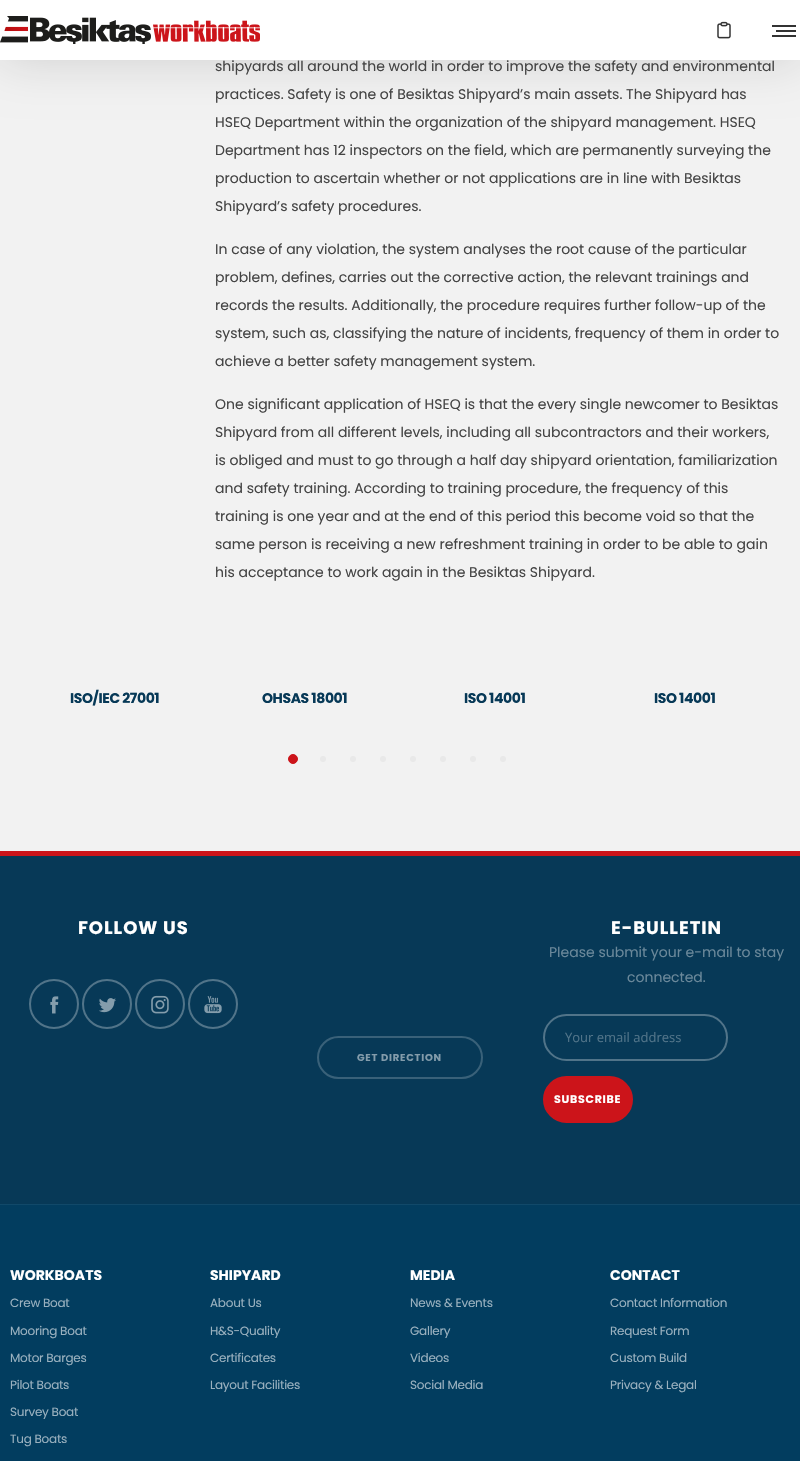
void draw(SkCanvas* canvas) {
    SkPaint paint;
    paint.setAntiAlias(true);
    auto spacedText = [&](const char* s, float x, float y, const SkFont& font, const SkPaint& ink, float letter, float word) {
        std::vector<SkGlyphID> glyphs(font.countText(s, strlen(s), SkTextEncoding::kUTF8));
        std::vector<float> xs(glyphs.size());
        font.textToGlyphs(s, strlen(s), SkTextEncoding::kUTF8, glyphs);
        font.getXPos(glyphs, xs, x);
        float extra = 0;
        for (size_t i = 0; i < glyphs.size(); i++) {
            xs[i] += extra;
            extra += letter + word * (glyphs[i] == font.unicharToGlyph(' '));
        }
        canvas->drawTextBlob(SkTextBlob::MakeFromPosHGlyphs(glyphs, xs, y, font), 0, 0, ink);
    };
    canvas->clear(0xFF073957);
    paint.setColor(0xFFF2F2F2);
    canvas->drawRect(SkRect::MakeXYWH(0, 60, 800, 791), paint);
    paint.setColor(0x26000000);
    paint.setMaskFilter(SkMaskFilter::MakeBlur(kNormal_SkBlurStyle, 25));
    canvas->drawRect(SkRect::MakeXYWH(0, 0, 800, 60), paint);
    paint.setMaskFilter(nullptr);
    paint.setColor(0xFFFFFFFF);
    canvas->drawRect(SkRect::MakeXYWH(0, 0, 800, 60), paint);
    canvas->drawImageRect(SkImages::DeferredFromEncodedData(SkData::MakeFromFileName("img1.png")), SkRect::MakeXYWH(0, 16, 260, 28), SkSamplingOptions());
    canvas->drawImageRect(SkImages::DeferredFromEncodedData(SkData::MakeFromFileName("img2.png")), SkRect::MakeXYWH(717, 21, 14, 18), SkSamplingOptions());
    paint.setColor(0xFF333333);
    canvas->drawRect(SkRect::MakeXYWH(772, 25, 24, 2), paint);
    canvas->drawRect(SkRect::MakeXYWH(776, 30, 20, 2), paint);
    canvas->drawRect(SkRect::MakeXYWH(772, 35, 24, 2), paint);
    SkFont font1(fontMgr->matchFamilyStyle("Poppins", SkFontStyle::Normal()), 14);
    font1.setSubpixel(true);
    paint.setColor(0xFF444444);
    canvas->drawString("shipyards all around the world in order to improve the safety and environmental", 215, 71, font1, paint);
    canvas->drawString("practices. Safety is one of Besiktas Shipyard’s main assets. The Shipyard has", 215, 99, font1, paint);
    canvas->drawString("HSEQ Department within the organization of the shipyard management. HSEQ", 215, 127, font1, paint);
    canvas->drawString("Department has 12 inspectors on the field, which are permanently surveying the", 215, 155, font1, paint);
    canvas->drawString("production to ascertain whether or not applications are in line with Besiktas", 215, 183, font1, paint);
    canvas->drawString("Shipyard’s safety procedures.", 215, 211, font1, paint);
    canvas->drawString("In case of any violation, the system analyses the root cause of the particular", 215, 254, font1, paint);
    canvas->drawString("problem, defines, carries out the corrective action, the relevant trainings and", 215, 282, font1, paint);
    canvas->drawString("records the results. Additionally, the procedure requires further follow-up of the", 215, 310, font1, paint);
    canvas->drawString("system, such as, classifying the nature of incidents, frequency of them in order to", 215, 338, font1, paint);
    canvas->drawString("achieve a better safety management system.", 215, 366, font1, paint);
    canvas->drawString("One significant application of HSEQ is that the every single newcomer to Besiktas", 215, 409, font1, paint);
    canvas->drawString("Shipyard from all different levels, including all subcontractors and their workers,", 215, 437, font1, paint);
    canvas->drawString("is obliged and must to go through a half day shipyard orientation, familiarization", 215, 465, font1, paint);
    canvas->drawString("and safety training. According to training procedure, the frequency of this", 215, 493, font1, paint);
    canvas->drawString("training is one year and at the end of this period this become void so that the", 215, 521, font1, paint);
    canvas->drawString("same person is receiving a new refreshment training in order to be able to gain", 215, 549, font1, paint);
    canvas->drawString("his acceptance to work again in the Besiktas Shipyard.", 215, 577, font1, paint);
    SkFont font2(fontMgr->matchFamilyStyle("Poppins", SkFontStyle::Bold()), 14);
    font2.setSubpixel(true);
    paint.setColor(0xFF073957);
    spacedText("ISO/IEC 27001", 70, 703, font2, paint, -0.4f, 0);
    spacedText("OHSAS 18001", 262, 703, font2, paint, -0.4f, 0);
    spacedText("ISO 14001", 464, 703, font2, paint, -0.4f, 0);
    spacedText("ISO 14001", 654, 703, font2, paint, -0.4f, 0);
    paint.setColor(0xFFCC141A);
    canvas->drawCircle(293, 759, 4.5f, paint);
    paint.setStyle(SkPaint::kStroke_Style);
    paint.setStrokeWidth(1);
    canvas->drawCircle(293, 759, 4.5f, paint);
    paint.setStyle(SkPaint::kFill_Style);
    paint.setColor(0xFFE9E9E9);
    canvas->drawCircle(323, 759, 3, paint);
    canvas->drawCircle(353, 759, 3, paint);
    canvas->drawCircle(383, 759, 3, paint);
    canvas->drawCircle(413, 759, 3, paint);
    canvas->drawCircle(443, 759, 3, paint);
    canvas->drawCircle(473, 759, 3, paint);
    canvas->drawCircle(503, 759, 3, paint);
    paint.setColor(0xFFCC141A);
    canvas->drawRect(SkRect::MakeXYWH(0, 851, 800, 5), paint);
    SkFont font3(fontMgr->matchFamilyStyle("Poppins", SkFontStyle::Bold()), 18);
    font3.setSubpixel(true);
    paint.setColor(0xFFFFFFFF);
    spacedText("FOLLOW US", 78, 934, font3, paint, 1, 0);
    paint.setStyle(SkPaint::kStroke_Style);
    paint.setStrokeWidth(2);
    paint.setColor(0xFF517489);
    canvas->drawCircle(54, 1004, 24, paint);
    canvas->drawImageRect(SkImages::DeferredFromEncodedData(SkData::MakeFromFileName("img3.png")), SkRect::MakeXYWH(50, 996, 9, 18), SkSamplingOptions());
    canvas->drawCircle(107, 1004, 24, paint);
    canvas->drawImageRect(SkImages::DeferredFromEncodedData(SkData::MakeFromFileName("img4.png")), SkRect::MakeXYWH(99, 998, 17, 15), SkSamplingOptions());
    canvas->drawCircle(160, 1004, 24, paint);
    canvas->drawImageRect(SkImages::DeferredFromEncodedData(SkData::MakeFromFileName("img5.png")), SkRect::MakeXYWH(151, 995, 18, 19), SkSamplingOptions());
    canvas->drawCircle(213, 1004, 24, paint);
    canvas->drawImageRect(SkImages::DeferredFromEncodedData(SkData::MakeFromFileName("img6.png")), SkRect::MakeXYWH(204, 996, 18, 18), SkSamplingOptions());
    paint.setColor(0xFF396179);
    canvas->drawRoundRect(SkRect::MakeXYWH(318, 1037, 164, 41), 20.5f, 20.5f, paint);
    SkFont font4(fontMgr->matchFamilyStyle("Poppins", SkFontStyle::Bold()), 10);
    font4.setSubpixel(true);
    paint.setStyle(SkPaint::kFill_Style);
    paint.setColor(0xFF839CAB);
    spacedText("GET DIRECTION", 357, 1061, font4, paint, 0.75f, 0);
    paint.setColor(0xFFFFFFFF);
    spacedText("E-BULLETIN", 611, 934, font3, paint, 1, 0);
    paint.setColor(0xFF6A889A);
    canvas->drawString("Please submit your e-mail to stay", 549, 957, font1, paint);
    canvas->drawString("connected.", 627, 982, font1, paint);
    paint.setStyle(SkPaint::kStroke_Style);
    paint.setColor(0xFF517489);
    canvas->drawRoundRect(SkRect::MakeXYWH(544, 1015, 183, 45), 22.5f, 22.5f, paint);
    SkFont font5(fontMgr->matchFamilyStyle("Open Sans", SkFontStyle::Normal()), 13);
    font5.setSubpixel(true);
    paint.setStyle(SkPaint::kFill_Style);
    canvas->drawString("Your email address", 565, 1042, font5, paint);
    paint.setColor(0xFFCC141A);
    canvas->drawRoundRect(SkRect::MakeXYWH(544, 1077, 88, 45), 22.5f, 22.5f, paint);
    paint.setStyle(SkPaint::kStroke_Style);
    canvas->drawRoundRect(SkRect::MakeXYWH(544, 1077, 88, 45), 22.5f, 22.5f, paint);
    SkFont font6(fontMgr->matchFamilyStyle("Poppins", SkFontStyle::Bold()), 11);
    font6.setSubpixel(true);
    paint.setStyle(SkPaint::kFill_Style);
    paint.setColor(0xFFFFFFFF);
    spacedText("SUBSCRIBE", 554, 1103, font6, paint, 0.75f, 0);
    paint.setColor(0xFF023D5F);
    canvas->drawRect(SkRect::MakeXYWH(0, 1205, 800, 256), paint);
    paint.setColor(0xFF114969);
    canvas->drawRect(SkRect::MakeXYWH(0, 1204, 800, 1), paint);
    paint.setColor(0xFFFFFFFF);
    canvas->drawString("WORKBOATS", 10, 1280, font2, paint);
    SkFont font7(fontMgr->matchFamilyStyle("Poppins", SkFontStyle::Normal()), 12);
    font7.setSubpixel(true);
    paint.setColor(0xFF9AB1BF);
    spacedText("Crew Boat", 10, 1307, font7, paint, -0.25f, 0);
    spacedText("Mooring Boat", 10, 1335, font7, paint, -0.25f, 0);
    spacedText("Motor Barges", 10, 1362, font7, paint, -0.25f, 0);
    spacedText("Pilot Boats", 10, 1389, font7, paint, -0.25f, 0);
    spacedText("Survey Boat", 10, 1416, font7, paint, -0.25f, 0);
    spacedText("Tug Boats", 10, 1443, font7, paint, -0.25f, 0);
    paint.setColor(0xFFFFFFFF);
    canvas->drawString("SHIPYARD", 210, 1280, font2, paint);
    paint.setColor(0xFF9AB1BF);
    spacedText("About Us", 210, 1307, font7, paint, -0.25f, 0);
    spacedText("H&S-Quality", 210, 1335, font7, paint, -0.25f, 0);
    spacedText("Certificates", 210, 1362, font7, paint, -0.25f, 0);
    spacedText("Layout Facilities", 210, 1389, font7, paint, -0.25f, 0);
    paint.setColor(0xFFFFFFFF);
    canvas->drawString("MEDIA", 410, 1280, font2, paint);
    paint.setColor(0xFF9AB1BF);
    spacedText("News & Events", 410, 1307, font7, paint, -0.25f, 0);
    spacedText("Gallery", 410, 1335, font7, paint, -0.25f, 0);
    spacedText("Videos", 410, 1362, font7, paint, -0.25f, 0);
    spacedText("Social Media", 410, 1389, font7, paint, -0.25f, 0);
    paint.setColor(0xFFFFFFFF);
    canvas->drawString("CONTACT", 610, 1280, font2, paint);
    paint.setColor(0xFF9AB1BF);
    spacedText("Contact Information", 610, 1307, font7, paint, -0.25f, 0);
    spacedText("Request Form", 610, 1335, font7, paint, -0.25f, 0);
    spacedText("Custom Build", 610, 1362, font7, paint, -0.25f, 0);
    spacedText("Privacy & Legal", 610, 1389, font7, paint, -0.25f, 0);
}
